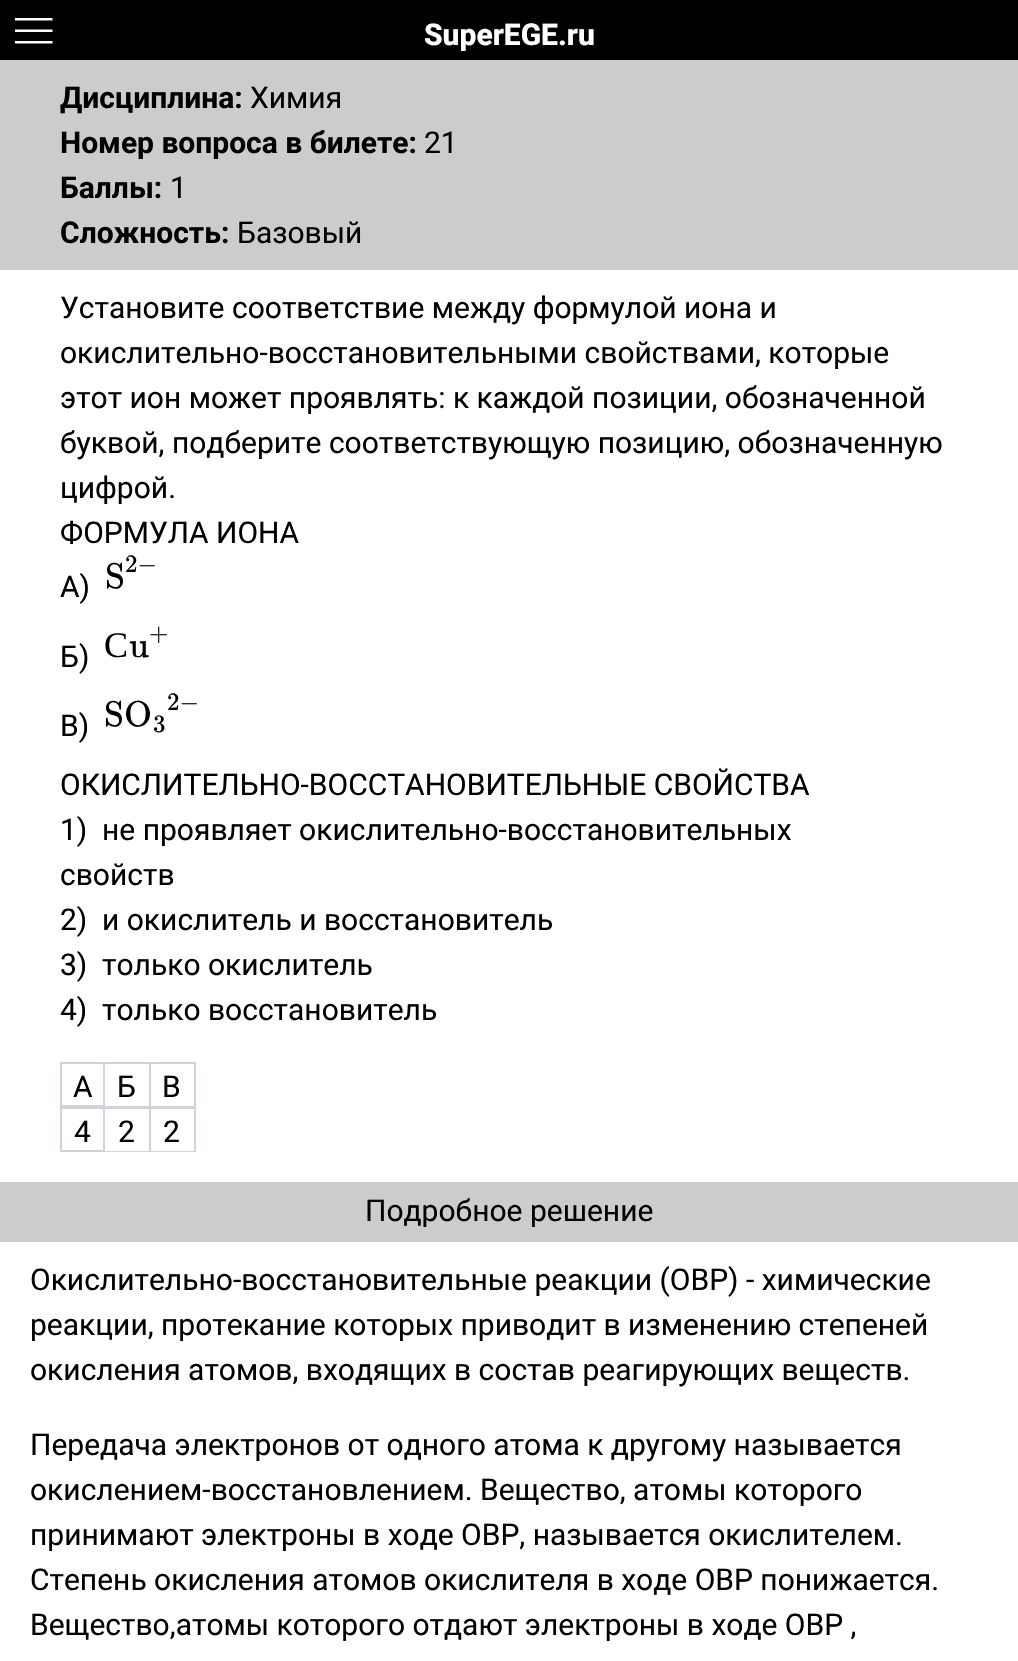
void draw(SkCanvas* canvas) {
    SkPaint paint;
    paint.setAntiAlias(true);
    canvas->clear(0xFFFFFFFF);
    paint.setColor(0xFF000000);
    canvas->drawRect(SkRect::MakeXYWH(0, 0, 1018, 60), paint);
    paint.setColor(0xFFFFFFFF);
    canvas->drawPath(SkPathBuilder().moveTo(15, 18).lineTo(15, 20.5f).lineTo(52.5f, 20.5f).lineTo(52.5f, 18).close().moveTo(15, 29.5f).lineTo(15, 32).lineTo(52.5f, 32).lineTo(52.5f, 29.5f).close().moveTo(15, 41).lineTo(15, 43.5f).lineTo(52.5f, 43.5f).lineTo(52.5f, 41).close().detach(), paint);
    SkFont font1(fontMgr->matchFamilyStyle("Roboto", SkFontStyle(800, SkFontStyle::kNormal_Width, SkFontStyle::kUpright_Slant)), 30);
    font1.setSubpixel(true);
    canvas->drawString("SuperEGE.ru", 424, 45, font1, paint);
    paint.setColor(0xFFCCCCCC);
    canvas->drawRect(SkRect::MakeXYWH(0, 60, 1018, 210), paint);
    SkFont font2(fontMgr->matchFamilyStyle("Roboto", SkFontStyle::Bold()), 30);
    font2.setSubpixel(true);
    paint.setColor(0xFF000000);
    canvas->drawString("Дисциплина:", 60, 108, font2, paint);
    SkFont font3(fontMgr->matchFamilyStyle("Roboto", SkFontStyle::Normal()), 30);
    font3.setSubpixel(true);
    canvas->drawString("Химия", 250, 108, font3, paint);
    canvas->drawString("Номер вопроса в билете:", 60, 153, font2, paint);
    canvas->drawString("21", 424, 153, font3, paint);
    canvas->drawString("Баллы:", 60, 198, font2, paint);
    canvas->drawString("1", 170, 198, font3, paint);
    canvas->drawString("Сложность:", 60, 243, font2, paint);
    canvas->drawString("Базовый", 237, 243, font3, paint);
    canvas->drawString("Установите соответствие между формулой иона и", 60, 318, font3, paint);
    canvas->drawString("окислительно-восстановительными свойствами, которые", 60, 363, font3, paint);
    canvas->drawString("этот ион может проявлять: к каждой позиции, обозначенной", 60, 408, font3, paint);
    canvas->drawString("буквой, подберите соответствующую позицию, обозначенную", 60, 453, font3, paint);
    canvas->drawString("цифрой.", 60, 498, font3, paint);
    canvas->drawString("ФОРМУЛА ИОНА", 60, 543, font3, paint);
    canvas->drawString("А)", 60, 597, font3, paint);
    SkFont font4(fontMgr->matchFamilyStyle("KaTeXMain", SkFontStyle::Normal()), 36);
    font4.setSubpixel(true);
    canvas->drawString("S", 105, 588, font4, paint);
    SkFont font5(fontMgr->matchFamilyStyle("KaTeXMain", SkFontStyle::Normal()), 25);
    font5.setSubpixel(true);
    canvas->drawString("2−", 125, 572, font5, paint);
    canvas->drawString("Б)", 60, 667, font3, paint);
    SkFont font6(fontMgr->matchFamilyStyle("Liberation Serif", SkFontStyle::Normal()), 36);
    font6.setSubpixel(true);
    canvas->drawString("С", 104, 657, font6, paint);
    canvas->drawString("u", 129, 657, font4, paint);
    canvas->drawString("+", 149, 641, font5, paint);
    canvas->drawString("В)", 60, 736, font3, paint);
    canvas->drawString("SO", 104, 726, font4, paint);
    canvas->drawString("3", 153, 732, font5, paint);
    canvas->drawString("2−", 167, 710, font5, paint);
    canvas->drawString("ОКИСЛИТЕЛЬНО-ВОССТАНОВИТЕЛЬНЫЕ СВОЙСТВА", 60, 795, font3, paint);
    canvas->drawString("1)", 60, 840, font3, paint);
    canvas->drawString("не проявляет окислительно-восстановительных", 102, 840, font3, paint);
    canvas->drawString("свойств", 60, 885, font3, paint);
    canvas->drawString("2)", 60, 930, font3, paint);
    canvas->drawString("и окислитель и восстановитель", 102, 930, font3, paint);
    canvas->drawString("3)", 60, 975, font3, paint);
    canvas->drawString("только окислитель", 102, 975, font3, paint);
    canvas->drawString("4)", 60, 1020, font3, paint);
    canvas->drawString("только восстановитель", 102, 1020, font3, paint);
    paint.setStyle(SkPaint::kStroke_Style);
    paint.setStrokeWidth(2);
    paint.setColor(0xFFCED4DA);
    canvas->drawRect(SkRect::MakeXYWH(61, 1063, 43, 43), paint);
    paint.setStyle(SkPaint::kFill_Style);
    paint.setColor(0xFF000000);
    canvas->drawString("А", 73, 1097, font3, paint);
    paint.setColor(0xFFCED4DA);
    canvas->drawRect(SkRect::MakeXYWH(105, 1062, 45, 2), paint);
    canvas->drawRect(SkRect::MakeXYWH(149, 1062, 2, 45), paint);
    canvas->drawRect(SkRect::MakeXYWH(105, 1106, 45, 3), paint);
    paint.setColor(0xFF000000);
    canvas->drawString("Б", 117, 1097, font3, paint);
    paint.setColor(0xFFCED4DA);
    canvas->drawRect(SkRect::MakeXYWH(150, 1062, 45, 2), paint);
    canvas->drawRect(SkRect::MakeXYWH(194, 1062, 2, 45), paint);
    canvas->drawRect(SkRect::MakeXYWH(150, 1106, 45, 1), paint);
    paint.setColor(0xFF000000);
    canvas->drawString("В", 162, 1097, font3, paint);
    paint.setStyle(SkPaint::kStroke_Style);
    paint.setColor(0xFFCED4DA);
    canvas->drawRect(SkRect::MakeXYWH(61, 1108, 43, 43), paint);
    paint.setStyle(SkPaint::kFill_Style);
    paint.setColor(0xFF000000);
    canvas->drawString("4", 74, 1142, font3, paint);
    paint.setColor(0xFFCED4DA);
    canvas->drawRect(SkRect::MakeXYWH(149, 1107, 2, 45), paint);
    canvas->drawRect(SkRect::MakeXYWH(105, 1151, 45, 1), paint);
    paint.setColor(0xFF000000);
    canvas->drawString("2", 118, 1142, font3, paint);
    paint.setColor(0xFFCED4DA);
    canvas->drawRect(SkRect::MakeXYWH(150, 1107, 45, 2), paint);
    canvas->drawRect(SkRect::MakeXYWH(194, 1107, 2, 45), paint);
    canvas->drawRect(SkRect::MakeXYWH(150, 1151, 45, 1), paint);
    paint.setColor(0xFF000000);
    canvas->drawString("2", 163, 1142, font3, paint);
    paint.setColor(0xFFCCCCCC);
    canvas->drawRect(SkRect::MakeXYWH(0, 1182, 1018, 60), paint);
    paint.setColor(0xFF000000);
    canvas->drawString("Подробное решение", 365, 1221, font3, paint);
    canvas->drawString("Окислительно-восстановительные реакции (ОВР) - химические", 30, 1290, font3, paint);
    canvas->drawString("реакции, протекание которых приводит в изменению степеней", 30, 1335, font3, paint);
    canvas->drawString("окисления атомов, входящих в состав реагирующих веществ.", 30, 1380, font3, paint);
    canvas->drawString("Передача электронов от одного атома к другому называется", 30, 1455, font3, paint);
    canvas->drawString("окислением-восстановлением. Вещество, атомы которого", 30, 1500, font3, paint);
    canvas->drawString("принимают электроны в ходе ОВР, называется окислителем.", 30, 1545, font3, paint);
    canvas->drawString("Степень окисления атомов окислителя в ходе ОВР понижается.", 30, 1590, font3, paint);
    canvas->drawString("Вещество,атомы которого отдают электроны в ходе ОВР ,", 30, 1635, font3, paint);
}
